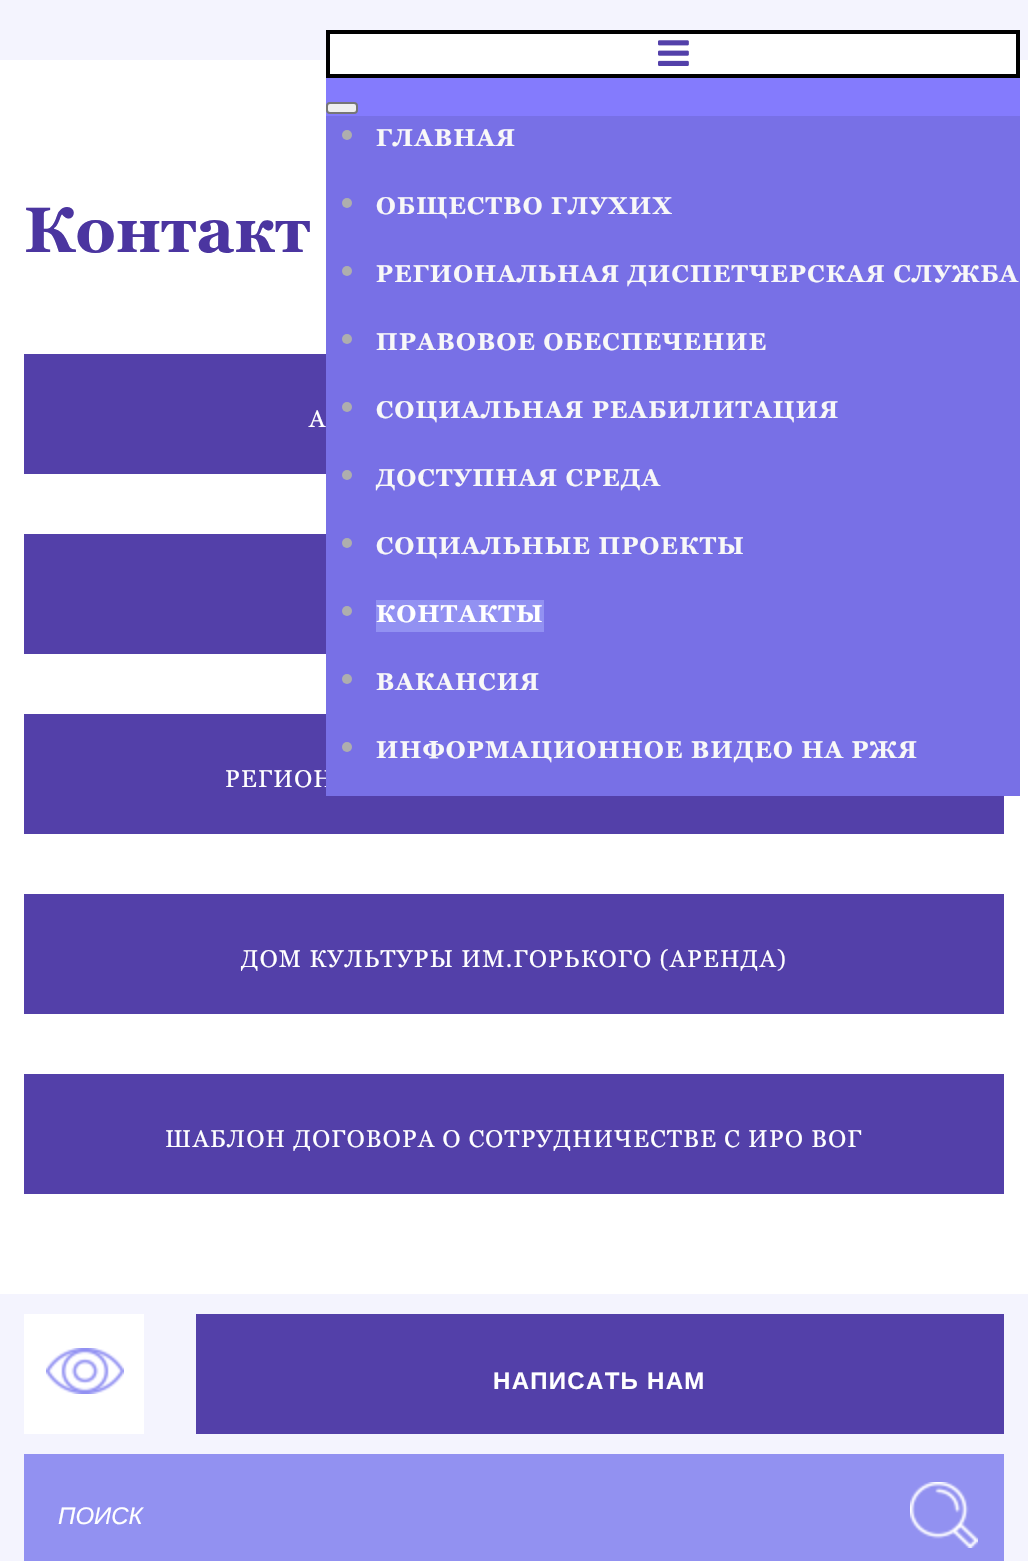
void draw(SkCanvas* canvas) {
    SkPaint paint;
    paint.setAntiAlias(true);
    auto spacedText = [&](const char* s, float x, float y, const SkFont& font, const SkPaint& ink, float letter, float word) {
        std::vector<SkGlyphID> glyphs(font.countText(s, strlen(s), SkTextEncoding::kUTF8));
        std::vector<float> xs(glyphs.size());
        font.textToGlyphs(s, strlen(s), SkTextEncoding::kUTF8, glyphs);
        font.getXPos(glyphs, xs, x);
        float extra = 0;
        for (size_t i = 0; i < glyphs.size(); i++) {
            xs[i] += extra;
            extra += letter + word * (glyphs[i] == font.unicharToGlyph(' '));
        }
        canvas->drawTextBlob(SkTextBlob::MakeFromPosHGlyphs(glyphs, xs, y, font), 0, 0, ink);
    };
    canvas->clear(0xFFF4F4FE);
    paint.setColor(0xFFFFFFFF);
    canvas->drawRect(SkRect::MakeXYWH(330, 34, 686, 26), paint);
    canvas->drawRect(SkRect::MakeXYWH(0, 60, 1028, 1234), paint);
    paint.setStyle(SkPaint::kStroke_Style);
    paint.setStrokeWidth(4);
    paint.setColor(0xFF000000);
    canvas->drawRect(SkRect::MakeXYWH(328, 32, 690, 44), paint);
    canvas->drawImageRect(SkImages::DeferredFromEncodedData(SkData::MakeFromFileName("img1.png")), SkRect::MakeXYWH(658, 40, 31, 26), SkSamplingOptions());
    paint.setStyle(SkPaint::kFill_Style);
    paint.setColor(0xFF5340A9);
    canvas->drawRect(SkRect::MakeXYWH(24, 714, 980, 120), paint);
    SkFont font1(fontMgr->matchFamilyStyle("Georgia", SkFontStyle::Normal()), 24);
    font1.setSubpixel(true);
    paint.setColor(0xFFFFFFFF);
    spacedText("РЕГИОН", 225, 787, font1, paint, 1.3f, 0);
    paint.setColor(0xFF7870E6);
    canvas->drawRect(SkRect::MakeXYWH(326, 116, 694, 680), paint);
    paint.setColor(0xFF847BFD);
    canvas->drawRect(SkRect::MakeXYWH(326, 78, 694, 38), paint);
    paint.setColor(0xFFEFEFEF);
    canvas->drawRoundRect(SkRect::MakeXYWH(327, 103, 30, 10), 3, 3, paint);
    paint.setStyle(SkPaint::kStroke_Style);
    paint.setStrokeWidth(2);
    paint.setColor(0xFF767676);
    canvas->drawRoundRect(SkRect::MakeXYWH(327, 103, 30, 10), 3, 3, paint);
    paint.setStyle(SkPaint::kFill_Style);
    paint.setColor(0xFFAEAEAE);
    canvas->drawCircle(347, 135, 5, paint);
    SkFont font2(fontMgr->matchFamilyStyle("Georgia", SkFontStyle::Bold()), 24);
    font2.setSubpixel(true);
    paint.setColor(0xFFF8F8F8);
    spacedText("ГЛАВНАЯ", 376, 146, font2, paint, 1.3f, 0);
    paint.setColor(0xFFAEAEAE);
    canvas->drawCircle(347, 203, 5, paint);
    paint.setColor(0xFFF8F8F8);
    spacedText("ОБЩЕСТВО ГЛУХИХ", 376, 214, font2, paint, 1.3f, 0);
    paint.setColor(0xFFAEAEAE);
    canvas->drawCircle(347, 271, 5, paint);
    paint.setColor(0xFFF8F8F8);
    spacedText("РЕГИОНАЛЬНАЯ ДИСПЕТЧЕРСКАЯ СЛУЖБА", 376, 282, font2, paint, 1.3f, 0);
    paint.setColor(0xFFAEAEAE);
    canvas->drawCircle(347, 339, 5, paint);
    paint.setColor(0xFFF8F8F8);
    spacedText("ПРАВОВОЕ ОБЕСПЕЧЕНИЕ", 376, 350, font2, paint, 1.3f, 0);
    paint.setColor(0xFFAEAEAE);
    canvas->drawCircle(347, 407, 5, paint);
    paint.setColor(0xFFF8F8F8);
    spacedText("СОЦИАЛЬНАЯ РЕАБИЛИТАЦИЯ", 376, 418, font2, paint, 1.3f, 0);
    paint.setColor(0xFFAEAEAE);
    canvas->drawCircle(347, 475, 5, paint);
    paint.setColor(0xFFF8F8F8);
    spacedText("ДОСТУПНАЯ СРЕДА", 376, 486, font2, paint, 1.3f, 0);
    paint.setColor(0xFFAEAEAE);
    canvas->drawCircle(347, 543, 5, paint);
    paint.setColor(0xFFF8F8F8);
    spacedText("СОЦИАЛЬНЫЕ ПРОЕКТЫ", 376, 554, font2, paint, 1.3f, 0);
    paint.setColor(0xFFAEAEAE);
    canvas->drawCircle(347, 611, 5, paint);
    paint.setColor(0xFF9291F2);
    canvas->drawRect(SkRect::MakeXYWH(376, 600, 168, 32), paint);
    paint.setColor(0xFFFFFFFF);
    spacedText("КОНТАКТЫ", 376, 622, font2, paint, 1.3f, 0);
    paint.setColor(0xFFAEAEAE);
    canvas->drawCircle(347, 679, 5, paint);
    paint.setColor(0xFFF8F8F8);
    spacedText("ВАКАНСИЯ", 376, 690, font2, paint, 1.3f, 0);
    paint.setColor(0xFFAEAEAE);
    canvas->drawCircle(347, 747, 5, paint);
    paint.setColor(0xFFF8F8F8);
    spacedText("ИНФОРМАЦИОННОЕ ВИДЕО НА РЖЯ", 376, 758, font2, paint, 1.3f, 0);
    SkFont font3(fontMgr->matchFamilyStyle("Georgia", SkFontStyle::Bold()), 64);
    font3.setSubpixel(true);
    paint.setColor(0xFF4B35A0);
    canvas->drawString("Контакт", 24, 252, font3, paint);
    paint.setColor(0xFF5340A9);
    canvas->drawRect(SkRect::MakeXYWH(24, 354, 302, 120), paint);
    paint.setColor(0xFFFFFFFF);
    spacedText("А", 309, 427, font1, paint, 1.3f, 0);
    paint.setColor(0xFF5340A9);
    canvas->drawRect(SkRect::MakeXYWH(24, 534, 302, 120), paint);
    canvas->drawRect(SkRect::MakeXYWH(24, 894, 980, 120), paint);
    paint.setColor(0xFFFFFFFF);
    spacedText("ДОМ КУЛЬТУРЫ ИМ.ГОРЬКОГО (АРЕНДА)", 241, 967, font1, paint, 1.3f, 0);
    paint.setColor(0xFF5340A9);
    canvas->drawRect(SkRect::MakeXYWH(24, 1074, 980, 120), paint);
    paint.setColor(0xFFFFFFFF);
    spacedText("ШАБЛОН ДОГОВОРА О СОТРУДНИЧЕСТВЕ С ИРО ВОГ", 165, 1147, font1, paint, 1.3f, 0);
    canvas->drawRect(SkRect::MakeXYWH(24, 1314, 120, 120), paint);
    canvas->drawImageRect(SkImages::DeferredFromEncodedData(SkData::MakeFromFileName("img2.png")), SkRect::MakeXYWH(46, 1348, 78, 46), SkSamplingOptions());
    paint.setColor(0xFF5340A9);
    canvas->drawRect(SkRect::MakeXYWH(196, 1314, 808, 120), paint);
    SkFont font4(fontMgr->matchFamilyStyle("Liberation Sans", SkFontStyle::Bold()), 24);
    font4.setSubpixel(true);
    paint.setColor(0xFFFFFFFF);
    spacedText("НАПИСАТЬ НАМ", 493, 1389, font4, paint, 1.3f, 0);
    paint.setColor(0xFF9291F1);
    canvas->drawRect(SkRect::MakeXYWH(24, 1454, 980, 107), paint);
    SkFont font5(fontMgr->matchFamilyStyle("Liberation Sans", SkFontStyle::Italic()), 24);
    font5.setSubpixel(true);
    paint.setColor(0xFFFFFFFF);
    canvas->drawString("ПОИСК", 58, 1524, font5, paint);
    canvas->drawImageRect(SkImages::DeferredFromEncodedData(SkData::MakeFromFileName("img3.png")), SkRect::MakeXYWH(910, 1482, 68, 66), SkSamplingOptions());
}
